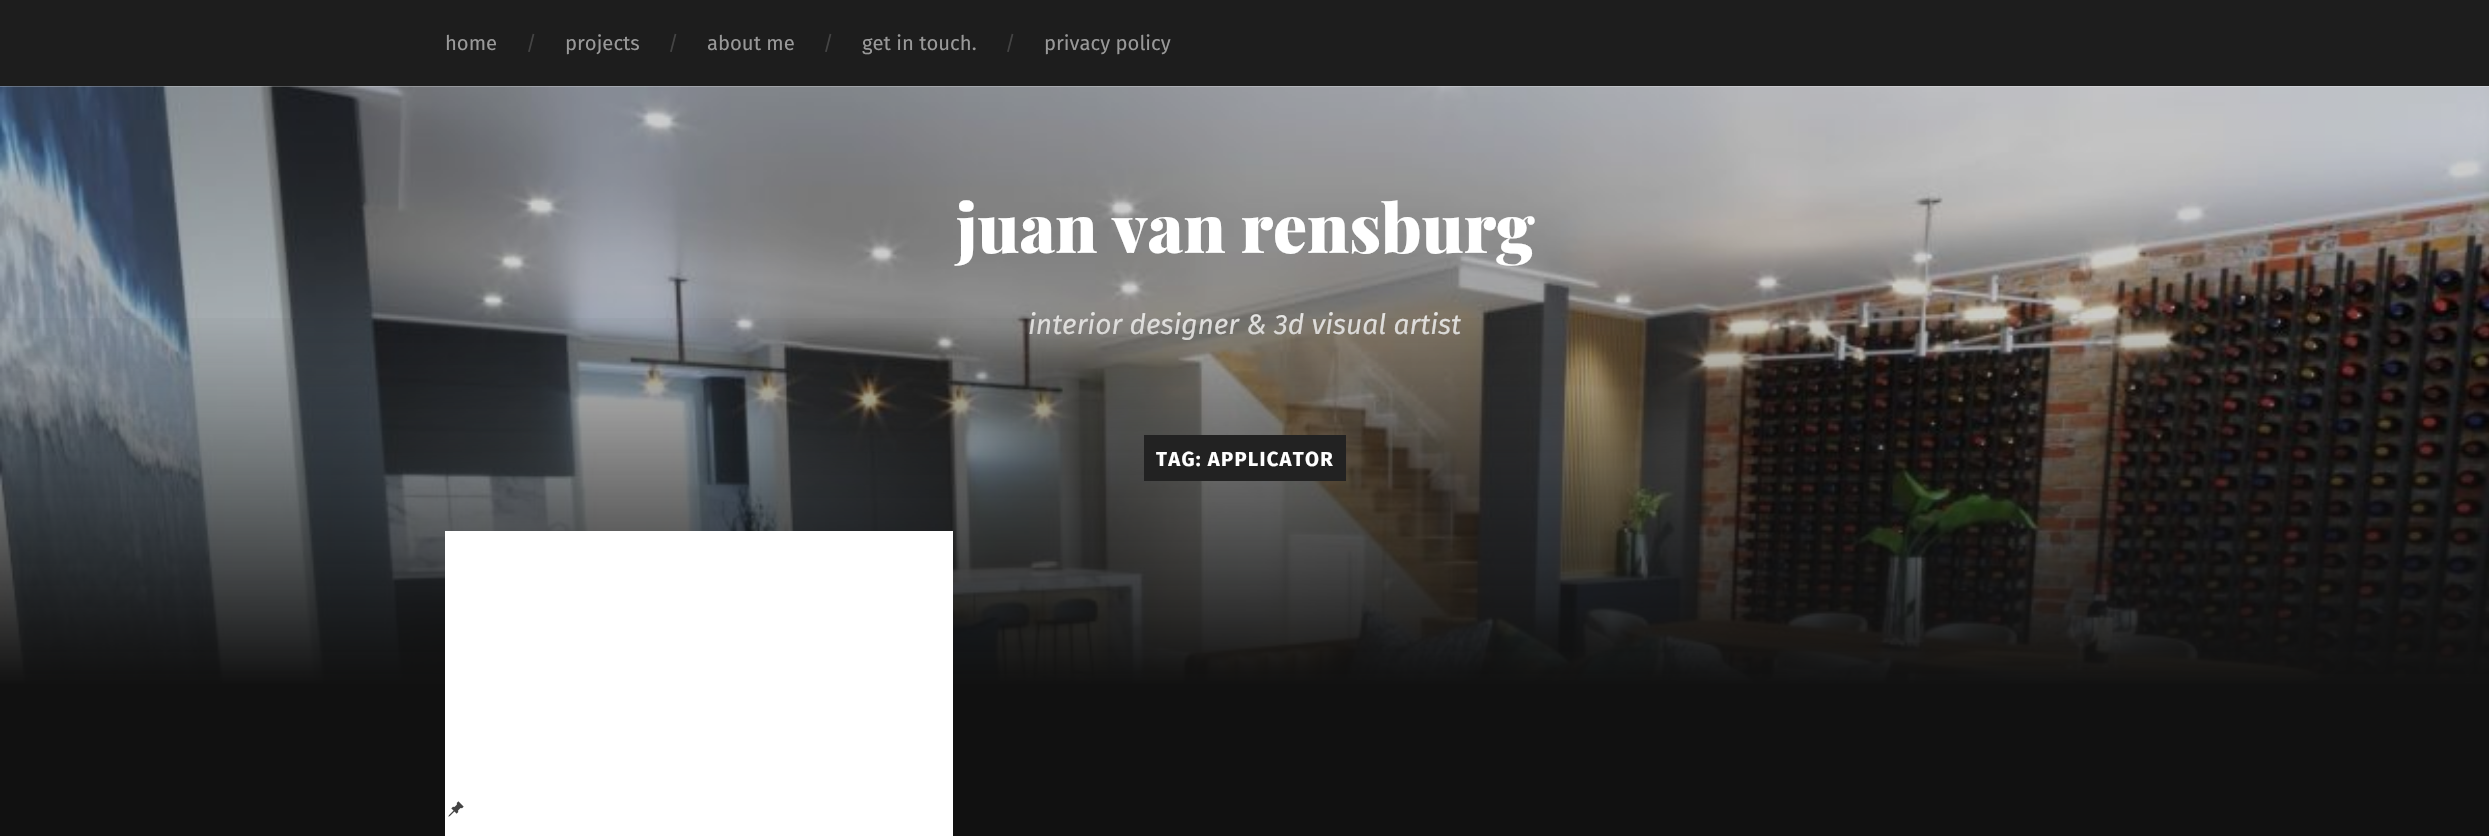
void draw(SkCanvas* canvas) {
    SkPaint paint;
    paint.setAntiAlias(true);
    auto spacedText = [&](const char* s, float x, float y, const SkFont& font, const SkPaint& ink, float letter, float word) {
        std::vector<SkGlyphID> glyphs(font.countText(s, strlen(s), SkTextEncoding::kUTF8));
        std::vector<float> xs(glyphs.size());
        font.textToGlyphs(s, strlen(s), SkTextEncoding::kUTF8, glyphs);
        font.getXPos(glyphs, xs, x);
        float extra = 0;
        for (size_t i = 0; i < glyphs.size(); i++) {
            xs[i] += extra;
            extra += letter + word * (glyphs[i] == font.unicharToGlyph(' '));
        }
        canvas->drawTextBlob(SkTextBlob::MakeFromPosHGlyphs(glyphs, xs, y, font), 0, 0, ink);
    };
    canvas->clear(0xFFFFFFFF);
    paint.setColor(0xFF1D1D1D);
    canvas->drawRect(SkRect::MakeXYWH(0, 0, 2489, 86), paint);
    SkFont font1(fontMgr->matchFamilyStyle("Fira Sans", SkFontStyle::Normal()), 20.25f);
    font1.setSubpixel(true);
    paint.setColor(0xFF999999);
    canvas->drawString("home", 445, 50, font1, paint);
    SkFont font2(fontMgr->matchFamilyStyle("Fira Sans", SkFontStyle::Normal()), 20);
    font2.setSubpixel(true);
    paint.setColor(0xFF444444);
    canvas->drawString("/", 526, 50, font2, paint);
    paint.setColor(0xFF999999);
    canvas->drawString("projects", 565, 50, font1, paint);
    paint.setColor(0xFF444444);
    canvas->drawString("/", 668, 50, font2, paint);
    paint.setColor(0xFF999999);
    canvas->drawString("about me", 707, 50, font1, paint);
    paint.setColor(0xFF444444);
    canvas->drawString("/", 823, 50, font2, paint);
    paint.setColor(0xFF999999);
    canvas->drawString("get in touch.", 862, 50, font1, paint);
    paint.setColor(0xFF444444);
    canvas->drawString("/", 1005, 50, font2, paint);
    paint.setColor(0xFF999999);
    canvas->drawString("privacy policy", 1044, 50, font1, paint);
    canvas->drawImageRect(SkImages::DeferredFromEncodedData(SkData::MakeFromFileName("img1.png")), SkRect::MakeXYWH(0, 86, 2489, 597), SkSamplingOptions());
    SkFont font3(fontMgr->matchFamilyStyle("Playfair Display", SkFontStyle(900, SkFontStyle::kNormal_Width, SkFontStyle::kUpright_Slant)), 67.5f);
    font3.setSubpixel(true);
    paint.setColor(0xFFFFFFFF);
    canvas->drawString("juan van rensburg", 956, 253, font3, paint);
    SkFont font4(fontMgr->matchFamilyStyle("Fira Sans", SkFontStyle::Italic()), 28.1f);
    font4.setSubpixel(true);
    paint.setColor(0xFFE6E5E3);
    canvas->drawString("interior designer & 3d visual artist", 1028, 334, font4, paint);
    {
        const SkColor colors[] = {0x00111111, 0xFF111111};
        const float stops[] = {0, 1};
        const SkPoint ends[] = {{1245, 310}, {1245, 685}};
        paint.setShader(SkGradientShader::MakeLinear(ends, colors, stops, 2, SkTileMode::kClamp));
        paint.setAlpha(255);
    }
    canvas->drawRect(SkRect::MakeXYWH(0, 318, 2489, 367), paint);
    paint.setShader(nullptr);
    paint.setColor(0xFF222222);
    canvas->drawRect(SkRect::MakeXYWH(1144, 435, 202, 46), paint);
    SkFont font5(fontMgr->matchFamilyStyle("Fira Sans", SkFontStyle::Bold()), 20.25f);
    font5.setSubpixel(true);
    paint.setColor(0xFFFFFFFF);
    spacedText("TAG: APPLICATOR", 1156, 466, font5, paint, 1.25f, 0);
    paint.setColor(0xFF111111);
    canvas->drawRect(SkRect::MakeXYWH(0, 685, 2489, 151), paint);
    paint.setColor(0xFFFFFFFF);
    canvas->drawRect(SkRect::MakeXYWH(445, 531, 508, 305), paint);
    canvas->drawImageRect(SkImages::DeferredFromEncodedData(SkData::MakeFromFileName("img2.png")), SkRect::MakeXYWH(448, 801, 16, 16), SkSamplingOptions());
}
